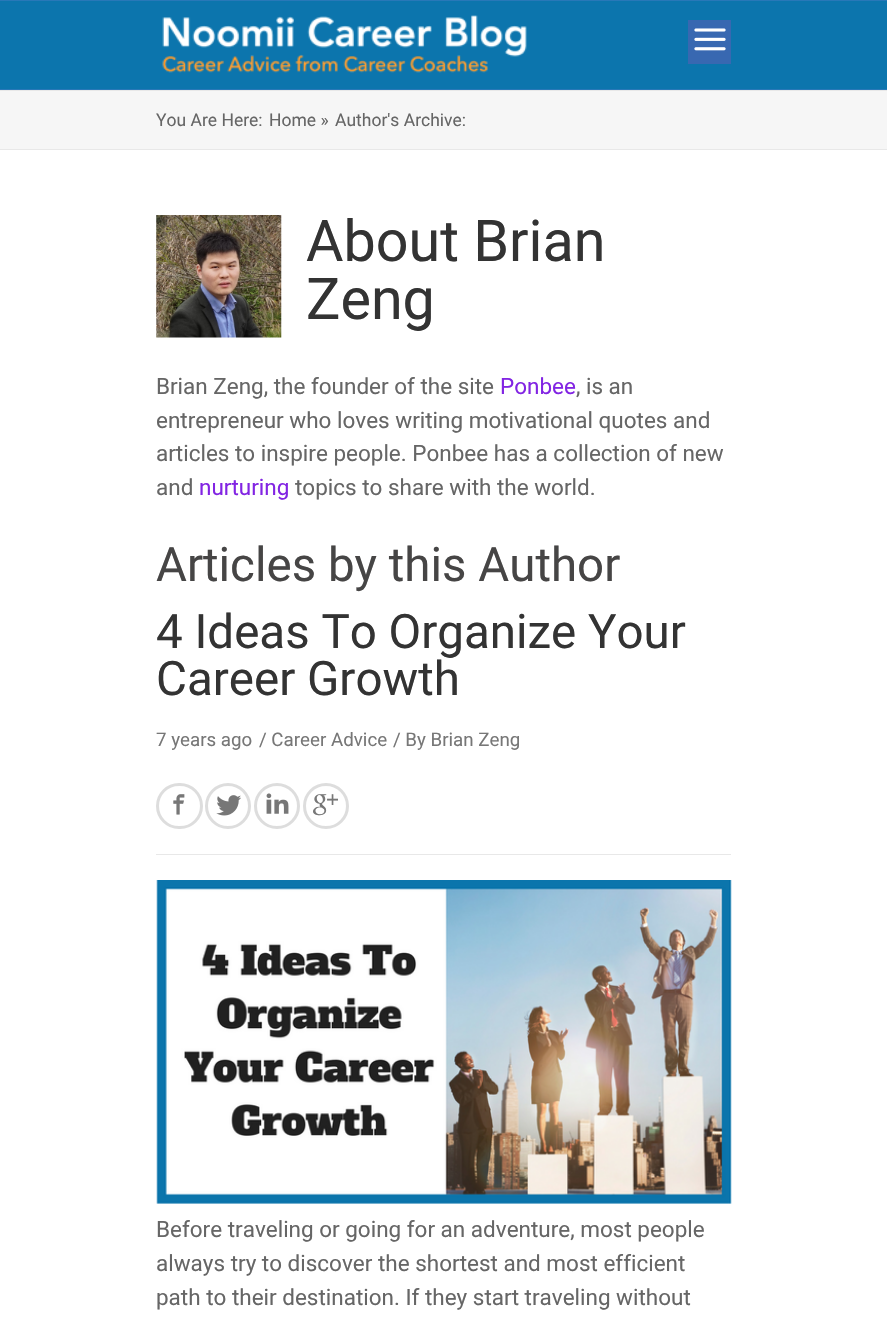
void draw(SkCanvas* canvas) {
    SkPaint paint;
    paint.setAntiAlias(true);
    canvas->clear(0xFFFFFFFF);
    paint.setColor(0xFF0C75AD);
    canvas->drawRect(SkRect::MakeXYWH(0, 1, 887, 88), paint);
    paint.setColor(0xFF2878B8);
    canvas->drawRect(SkRect::MakeXYWH(0, 0, 887, 1), paint);
    canvas->drawRect(SkRect::MakeXYWH(0, 89, 887, 1), paint);
    canvas->drawImageRect(SkImages::DeferredFromEncodedData(SkData::MakeFromFileName("img1.png")), SkRect::MakeXYWH(162, 15, 365, 58), SkSamplingOptions());
    paint.setColor(0xFF3868B1);
    canvas->drawRect(SkRect::MakeXYWH(688, 20, 43, 44), paint);
    canvas->drawImageRect(SkImages::DeferredFromEncodedData(SkData::MakeFromFileName("img2.png")), SkRect::MakeXYWH(694, 28, 32, 23), SkSamplingOptions());
    paint.setColor(0xFFF6F6F6);
    canvas->drawRect(SkRect::MakeXYWH(0, 91, 887, 58), paint);
    paint.setColor(0xFFE8E8E8);
    canvas->drawRect(SkRect::MakeXYWH(0, 90, 887, 1), paint);
    canvas->drawRect(SkRect::MakeXYWH(0, 149, 887, 1), paint);
    SkFont font1(fontMgr->matchFamilyStyle("Roboto", SkFontStyle::Normal()), 17.5f);
    font1.setSubpixel(true);
    paint.setColor(0xFF666666);
    canvas->drawString("You Are Here:", 156, 126, font1, paint);
    canvas->drawString("Home »", 269, 126, font1, paint);
    canvas->drawString("Author's Archive:", 335, 126, font1, paint);
    canvas->drawImageRect(SkImages::DeferredFromEncodedData(SkData::MakeFromFileName("img3.png")), SkRect::MakeXYWH(156, 215, 126, 123), SkSamplingOptions());
    SkFont font2(fontMgr->matchFamilyStyle("Roboto", SkFontStyle::Normal()), 57.5f);
    font2.setSubpixel(true);
    paint.setColor(0xFF333333);
    canvas->drawString("About Brian", 306, 261, font2, paint);
    canvas->drawString("Zeng", 306, 319, font2, paint);
    SkFont font3(fontMgr->matchFamilyStyle("Roboto", SkFontStyle::Normal()), 22.5f);
    font3.setSubpixel(true);
    paint.setColor(0xFF666666);
    canvas->drawString("Brian Zeng, the founder of the site", 156, 394, font3, paint);
    paint.setColor(0xFF8224E3);
    canvas->drawString("Ponbee", 500, 394, font3, paint);
    paint.setColor(0xFF666666);
    canvas->drawString(", is an", 576, 394, font3, paint);
    canvas->drawString("entrepreneur who loves writing motivational quotes and", 156, 428, font3, paint);
    canvas->drawString("articles to inspire people. Ponbee has a collection of new", 156, 461, font3, paint);
    canvas->drawString("and", 156, 495, font3, paint);
    paint.setColor(0xFF8224E3);
    canvas->drawString("nurturing", 199, 495, font3, paint);
    paint.setColor(0xFF666666);
    canvas->drawString("topics to share with the world.", 295, 495, font3, paint);
    SkFont font4(fontMgr->matchFamilyStyle("Roboto", SkFontStyle::Normal()), 47.5f);
    font4.setSubpixel(true);
    paint.setColor(0xFF464545);
    canvas->drawString("Articles by this Author", 156, 581, font4, paint);
    paint.setColor(0xFF333333);
    canvas->drawString("4 Ideas To Organize Your", 156, 648, font4, paint);
    canvas->drawString("Career Growth", 156, 695, font4, paint);
    paint.setColor(0xFFE8E8E8);
    canvas->drawRect(SkRect::MakeXYWH(156, 854, 575, 1), paint);
    SkFont font5(fontMgr->matchFamilyStyle("Roboto", SkFontStyle::Normal()), 18.75f);
    font5.setSubpixel(true);
    paint.setColor(0xFF777777);
    canvas->drawString("7 years ago", 156, 746, font5, paint);
    canvas->drawString("/ Career Advice", 259, 746, font5, paint);
    canvas->drawString("/ By Brian Zeng", 393, 746, font5, paint);
    paint.setStyle(SkPaint::kStroke_Style);
    paint.setStrokeWidth(3);
    paint.setColor(0xFFDDDDDD);
    canvas->drawRoundRect(SkRect::MakeXYWH(157.5f, 784.5f, 44, 43), 21.5f, 21.5f, paint);
    SkFont font6(fontMgr->matchFamilyStyle("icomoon", SkFontStyle::Normal()), 25);
    font6.setSubpixel(true);
    paint.setStyle(SkPaint::kFill_Style);
    paint.setColor(0xFF777777);
    canvas->drawString("=", 164, 813, font6, paint);
    paint.setStyle(SkPaint::kStroke_Style);
    paint.setColor(0xFFDDDDDD);
    canvas->drawCircle(228, 806, 21.5f, paint);
    canvas->drawImageRect(SkImages::DeferredFromEncodedData(SkData::MakeFromFileName("img4.png")), SkRect::MakeXYWH(216, 795, 25, 21), SkSamplingOptions());
    canvas->drawCircle(277, 806, 21.5f, paint);
    canvas->drawImageRect(SkImages::DeferredFromEncodedData(SkData::MakeFromFileName("img5.png")), SkRect::MakeXYWH(266, 793, 23, 21), SkSamplingOptions());
    canvas->drawCircle(326, 806, 21.5f, paint);
    paint.setStyle(SkPaint::kFill_Style);
    paint.setColor(0xFF777777);
    canvas->drawString("-", 313, 816, font6, paint);
    canvas->drawImageRect(SkImages::DeferredFromEncodedData(SkData::MakeFromFileName("img6.png")), SkRect::MakeXYWH(156, 880, 576, 324), SkSamplingOptions());
    paint.setColor(0xFF666666);
    canvas->drawString("Before traveling or going for an adventure, most people", 156, 1237, font3, paint);
    canvas->drawString("always try to discover the shortest and most efficient", 156, 1271, font3, paint);
    canvas->drawString("path to their destination. If they start traveling without", 156, 1305, font3, paint);
}
